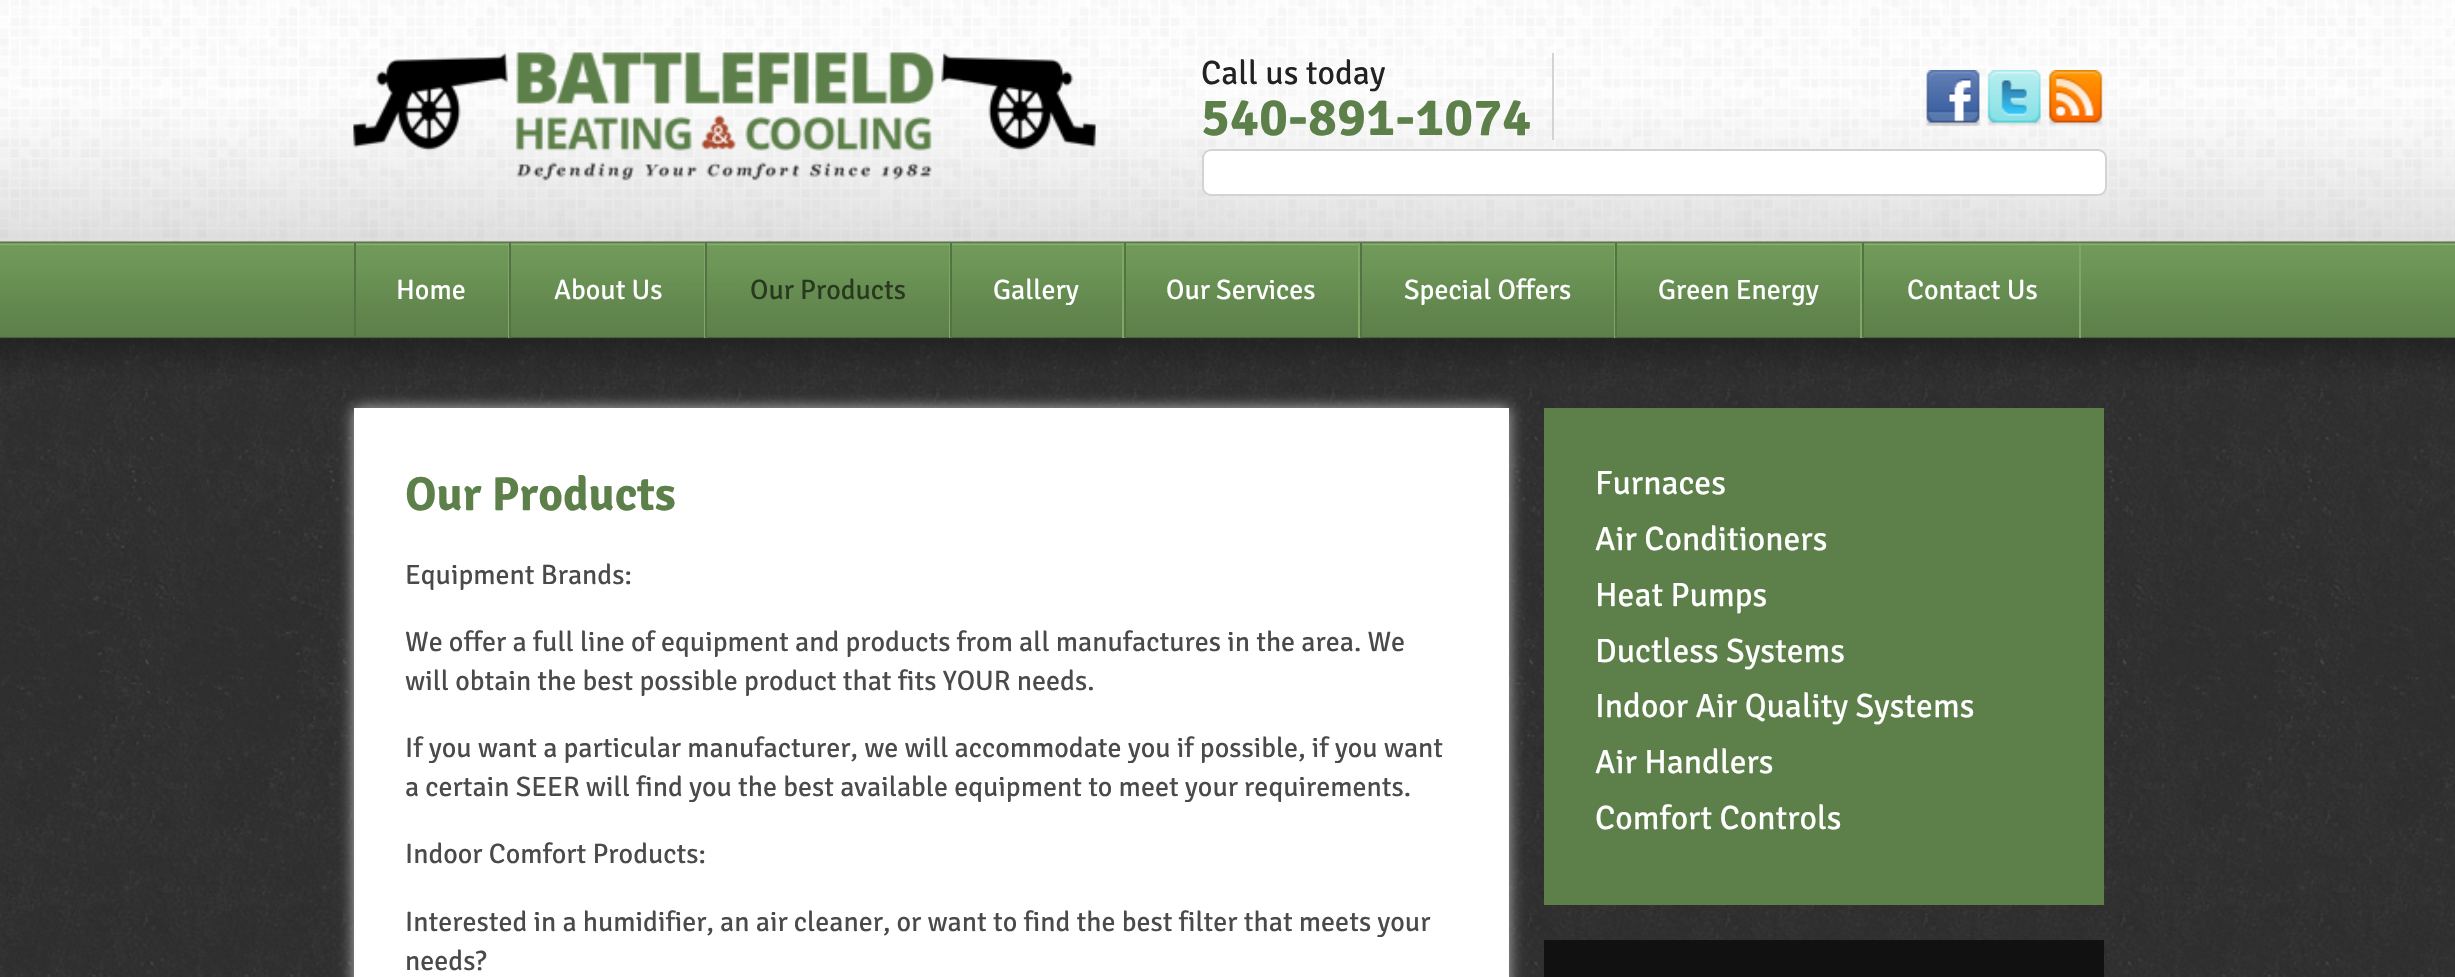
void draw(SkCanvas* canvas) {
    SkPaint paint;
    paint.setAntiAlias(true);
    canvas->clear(0xFFFFFFFF);
    canvas->drawImageRect(SkImages::DeferredFromEncodedData(SkData::MakeFromFileName("img1.png")), SkRect::MakeXYWH(0, 0, 2455, 977), SkSamplingOptions());
    canvas->drawImageRect(SkImages::DeferredFromEncodedData(SkData::MakeFromFileName("img2.png")), SkRect::MakeXYWH(353, 52, 743, 129), SkSamplingOptions());
    paint.setColor(0xFFD3D3D3);
    canvas->drawRect(SkRect::MakeXYWH(1552, 53, 2, 87), paint);
    SkFont font1(fontMgr->matchFamilyStyle("Signika Negative", SkFontStyle::Normal()), 33.6f);
    font1.setSubpixel(true);
    paint.setColor(0xFF222222);
    canvas->drawString("Call us today", 1201, 84, font1, paint);
    SkFont font2(fontMgr->matchFamilyStyle("Signika Negative", SkFontStyle::Bold()), 53.75f);
    font2.setSubpixel(true);
    paint.setColor(0xFF5D804A);
    canvas->drawString("540-891-1074", 1201, 135, font2, paint);
    canvas->drawImageRect(SkImages::DeferredFromEncodedData(SkData::MakeFromFileName("img3.png")), SkRect::MakeXYWH(1925, 70, 56, 56), SkSamplingOptions());
    canvas->drawImageRect(SkImages::DeferredFromEncodedData(SkData::MakeFromFileName("img4.png")), SkRect::MakeXYWH(1987, 70, 54, 56), SkSamplingOptions());
    canvas->drawImageRect(SkImages::DeferredFromEncodedData(SkData::MakeFromFileName("img5.png")), SkRect::MakeXYWH(2048, 70, 55, 56), SkSamplingOptions());
    paint.setColor(0xFFFFFFFF);
    canvas->drawRoundRect(SkRect::MakeXYWH(1203, 150, 903, 45), 8, 8, paint);
    paint.setStyle(SkPaint::kStroke_Style);
    paint.setStrokeWidth(2);
    paint.setColor(0xFFD3D3D3);
    canvas->drawRoundRect(SkRect::MakeXYWH(1203, 150, 903, 45), 8, 8, paint);
    paint.setStyle(SkPaint::kFill_Style);
    paint.setColor(0xFF7FA766);
    canvas->drawRect(SkRect::MakeXYWH(508, 243, 1, 95), paint);
    paint.setColor(0xFF557245);
    canvas->drawRect(SkRect::MakeXYWH(354, 243, 2, 95), paint);
    SkFont font3(fontMgr->matchFamilyStyle("Signika Negative", SkFontStyle::Normal()), 28);
    font3.setSubpixel(true);
    paint.setColor(0xFFFFFFFF);
    canvas->drawString("Home", 396, 299, font3, paint);
    paint.setColor(0xFF7FA766);
    canvas->drawRect(SkRect::MakeXYWH(704, 243, 1, 95), paint);
    paint.setColor(0xFF557245);
    canvas->drawRect(SkRect::MakeXYWH(509, 243, 2, 95), paint);
    paint.setColor(0xFFFFFFFF);
    canvas->drawString("About Us", 554, 299, font3, paint);
    paint.setColor(0xFF7FA766);
    canvas->drawRect(SkRect::MakeXYWH(949, 243, 1, 95), paint);
    paint.setColor(0xFF557245);
    canvas->drawRect(SkRect::MakeXYWH(705, 243, 2, 95), paint);
    paint.setColor(0xFF283920);
    canvas->drawString("Our Products", 750, 299, font3, paint);
    paint.setColor(0xFF7FA766);
    canvas->drawRect(SkRect::MakeXYWH(1122, 243, 2, 95), paint);
    paint.setColor(0xFF557245);
    canvas->drawRect(SkRect::MakeXYWH(950, 243, 2, 95), paint);
    paint.setColor(0xFFFFFFFF);
    canvas->drawString("Gallery", 993, 299, font3, paint);
    paint.setColor(0xFF7FA766);
    canvas->drawRect(SkRect::MakeXYWH(1358, 243, 2, 95), paint);
    paint.setColor(0xFF557245);
    canvas->drawRect(SkRect::MakeXYWH(1124, 243, 2, 95), paint);
    paint.setColor(0xFFFFFFFF);
    canvas->drawString("Our Services", 1166, 299, font3, paint);
    paint.setColor(0xFF7FA766);
    canvas->drawRect(SkRect::MakeXYWH(1614, 243, 1, 95), paint);
    paint.setColor(0xFF557245);
    canvas->drawRect(SkRect::MakeXYWH(1360, 243, 2, 95), paint);
    paint.setColor(0xFFFFFFFF);
    canvas->drawString("Special Offers", 1404, 299, font3, paint);
    paint.setColor(0xFF7FA766);
    canvas->drawRect(SkRect::MakeXYWH(1860, 243, 2, 95), paint);
    paint.setColor(0xFF557245);
    canvas->drawRect(SkRect::MakeXYWH(1615, 243, 2, 95), paint);
    paint.setColor(0xFFFFFFFF);
    canvas->drawString("Green Energy", 1658, 299, font3, paint);
    paint.setColor(0xFF7FA766);
    canvas->drawRect(SkRect::MakeXYWH(2079, 243, 2, 95), paint);
    paint.setColor(0xFF557245);
    canvas->drawRect(SkRect::MakeXYWH(1862, 243, 2, 95), paint);
    paint.setColor(0xFFFFFFFF);
    canvas->drawString("Contact Us", 1907, 299, font3, paint);
    paint.setColor(0xFFB9B8B8);
    paint.setMaskFilter(SkMaskFilter::MakeBlur(kNormal_SkBlurStyle, 7));
    canvas->drawRect(SkRect::MakeXYWH(354, 408, 1155, 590), paint);
    paint.setMaskFilter(nullptr);
    paint.setColor(0xFFFFFFFF);
    canvas->drawRect(SkRect::MakeXYWH(354, 408, 1155, 569), paint);
    SkFont font4(fontMgr->matchFamilyStyle("Signika Negative", SkFontStyle::Bold()), 47.5f);
    font4.setSubpixel(true);
    paint.setColor(0xFF5D804A);
    canvas->drawString("Our Products", 405, 510, font4, paint);
    paint.setColor(0xFF4A4A4A);
    canvas->drawString("Equipment Brands:", 405, 584, font3, paint);
    canvas->drawString("We offer a full line of equipment and products from all manufactures in the area. We", 405, 651, font3, paint);
    canvas->drawString("will obtain the best possible product that fits YOUR needs.", 405, 690, font3, paint);
    canvas->drawString("If you want a particular manufacturer, we will accommodate you if possible, if you want", 405, 757, font3, paint);
    canvas->drawString("a certain SEER will find you the best available equipment to meet your requirements.", 405, 796, font3, paint);
    canvas->drawString("Indoor Comfort Products:", 405, 863, font3, paint);
    canvas->drawString("Interested in a humidifier, an air cleaner, or want to find the best filter that meets your", 405, 931, font3, paint);
    canvas->drawString("needs?", 405, 970, font3, paint);
    paint.setColor(0xFF5D804A);
    canvas->drawRect(SkRect::MakeXYWH(1544, 408, 560, 497), paint);
    paint.setColor(0xFFFFFFFF);
    canvas->drawString("Furnaces", 1595, 494, font1, paint);
    canvas->drawString("Air Conditioners", 1595, 550, font1, paint);
    canvas->drawString("Heat Pumps", 1595, 606, font1, paint);
    canvas->drawString("Ductless Systems", 1595, 662, font1, paint);
    canvas->drawString("Indoor Air Quality Systems", 1595, 717, font1, paint);
    canvas->drawString("Air Handlers", 1595, 773, font1, paint);
    canvas->drawString("Comfort Controls", 1595, 829, font1, paint);
    paint.setColor(0xFF111111);
    canvas->drawRect(SkRect::MakeXYWH(1544, 940, 560, 37), paint);
}
